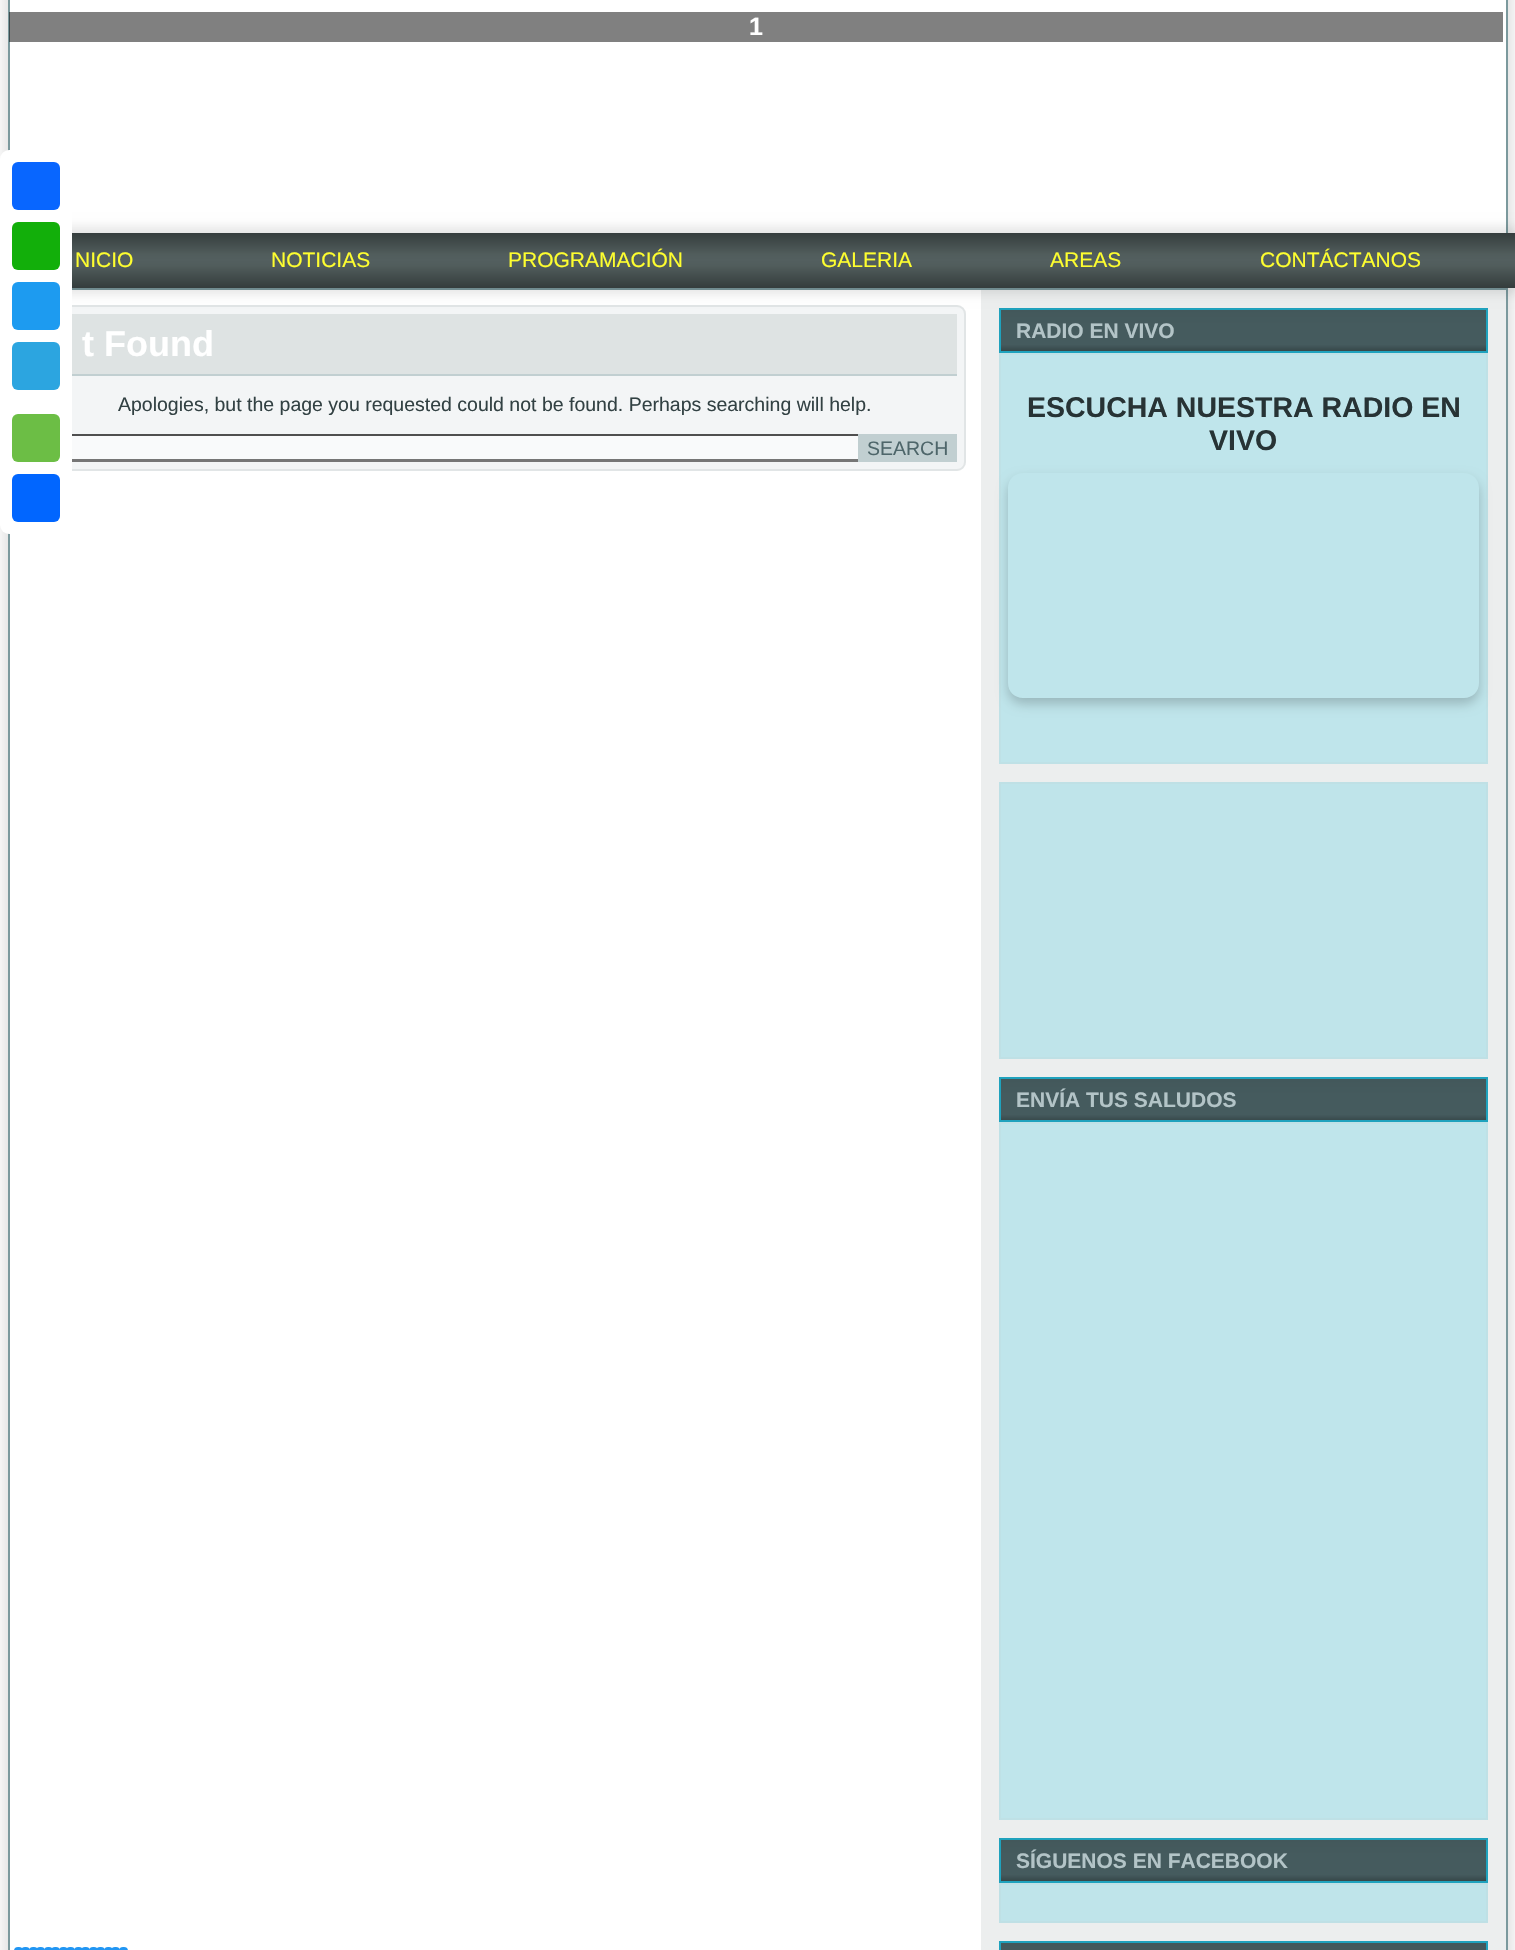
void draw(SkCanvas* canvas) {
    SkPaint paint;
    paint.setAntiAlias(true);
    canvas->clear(0xFFFFFFFF);
    paint.setColor(0xFF808080);
    canvas->drawRect(SkRect::MakeXYWH(10, 12, 1493, 30), paint);
    canvas->save();
    canvas->clipPath(SkPathBuilder(SkPathFillType::kEvenOdd).moveTo(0, 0).lineTo(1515, 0).lineTo(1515, 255).lineTo(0, 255).close().moveTo(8, -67).lineTo(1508, -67).lineTo(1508, 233).lineTo(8, 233).close().detach(), true);
    paint.setColor(0x1A000000);
    paint.setMaskFilter(SkMaskFilter::MakeBlur(kNormal_SkBlurStyle, 5));
    canvas->drawRect(SkRect::MakeXYWH(2, -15, 1512, 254), paint);
    paint.setMaskFilter(nullptr);
    canvas->restore();
    paint.setColor(0xFF7B999D);
    canvas->drawRect(SkRect::MakeXYWH(8, 0, 2, 151), paint);
    canvas->drawRect(SkRect::MakeXYWH(1506, 0, 2, 233), paint);
    paint.setColor(0x1A000000);
    paint.setMaskFilter(SkMaskFilter::MakeBlur(kNormal_SkBlurStyle, 5));
    canvas->drawRect(SkRect::MakeXYWH(2, 282, 1512, 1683), paint);
    paint.setMaskFilter(nullptr);
    paint.setColor(0xFFFFFFFF);
    canvas->drawRect(SkRect::MakeXYWH(10, 290, 971, 1660), paint);
    paint.setStyle(SkPaint::kStroke_Style);
    paint.setStrokeWidth(2);
    paint.setColor(0xFF7B999D);
    canvas->drawRect(SkRect::MakeXYWH(9, 289, 1498, 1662), paint);
    paint.setStyle(SkPaint::kFill_Style);
    paint.setColor(0xFFF3F5F6);
    canvas->drawRoundRect(SkRect::MakeXYWH(24, 305, 942, 166), 9, 9, paint);
    paint.setStyle(SkPaint::kStroke_Style);
    paint.setColor(0x4DB8C1C1);
    canvas->drawRoundRect(SkRect::MakeXYWH(25, 306, 940, 164), 8, 8, paint);
    paint.setStyle(SkPaint::kFill_Style);
    paint.setColor(0xFFECEEEE);
    canvas->drawRect(SkRect::MakeXYWH(981, 290, 525, 1660), paint);
    {
        const SkColor colors[] = {0xFF43585B, 0xFF455B5E, 0xFF455B5E, 0xFF364749};
        const float stops[] = {0, 0.4f, 0.85f, 1};
        const SkPoint ends[] = {{1244, 309}, {1244, 351}};
        paint.setShader(SkGradientShader::MakeLinear(ends, colors, stops, 4, SkTileMode::kClamp));
        paint.setAlpha(255);
    }
    canvas->drawRect(SkRect::MakeXYWH(1001, 310, 485, 41), paint);
    paint.setStyle(SkPaint::kStroke_Style);
    paint.setShader(nullptr);
    paint.setColor(0xFF1FA2BD);
    canvas->drawRect(SkRect::MakeXYWH(1000, 309, 487, 43), paint);
    paint.setStyle(SkPaint::kFill_Style);
    paint.setColor(0x1A000000);
    paint.setMaskFilter(SkMaskFilter::MakeBlur(kNormal_SkBlurStyle, 5));
    canvas->drawRect(SkRect::MakeXYWH(-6, 227, 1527, 67), paint);
    paint.setMaskFilter(nullptr);
    paint.setColor(0xFF4F4F4F);
    canvas->drawPath(SkPathBuilder().moveTo(33, 434).lineTo(957, 434).lineTo(954, 436).lineTo(36, 436).close().detach(), paint);
    paint.setColor(0xFF767676);
    canvas->drawPath(SkPathBuilder().moveTo(957, 462).lineTo(33, 462).lineTo(36, 459).lineTo(954, 459).close().detach(), paint);
    paint.setColor(0xFFFFFFFF);
    canvas->drawRoundRect(SkRect::MakeXYWH(0, 150, 72, 384), 9, 9, paint);
    paint.setColor(0xFF0866FF);
    canvas->drawRoundRect(SkRect::MakeXYWH(12, 162, 48, 48), 6, 6, paint);
    paint.setColor(0xFF12AF0A);
    canvas->drawRoundRect(SkRect::MakeXYWH(12, 222, 48, 48), 6, 6, paint);
    paint.setColor(0xFF1D9BF0);
    canvas->drawRoundRect(SkRect::MakeXYWH(12, 282, 48, 48), 6, 6, paint);
    paint.setColor(0xFF2CA5E0);
    canvas->drawRoundRect(SkRect::MakeXYWH(12, 342, 48, 48), 6, 6, paint);
    paint.setColor(0xFF6CBE45);
    canvas->drawRoundRect(SkRect::MakeXYWH(12, 414, 48, 48), 6, 6, paint);
    paint.setColor(0xFF0166FF);
    canvas->drawRoundRect(SkRect::MakeXYWH(12, 474, 48, 48), 6, 6, paint);
    paint.setColor(0xFF3E4D4F);
    canvas->drawRect(SkRect::MakeXYWH(9, 12, 1, 30), paint);
    SkFont font1(fontMgr->matchFamilyStyle("Liberation Sans", SkFontStyle::Bold()), 25);
    font1.setSubpixel(true);
    paint.setColor(0xFFFFFFFF);
    canvas->drawString("1", 749, 35, font1, paint);
    {
        const SkColor colors[] = {0xFF343C3C, 0xFF515D5C, 0xFF535F5F, 0xFF515D5C, 0xFF343C3C};
        const float stops[] = {0, 0.4f, 0.5f, 0.6f, 1};
        const SkPoint ends[] = {{758, 232}, {758, 288}};
        paint.setShader(SkGradientShader::MakeLinear(ends, colors, stops, 5, SkTileMode::kClamp));
        paint.setAlpha(255);
    }
    canvas->drawRect(SkRect::MakeXYWH(72, 233, 1443, 55), paint);
    SkFont font2(fontMgr->matchFamilyStyle("Liberation Sans", SkFontStyle::Normal()), 21);
    font2.setSubpixel(true);
    paint.setShader(nullptr);
    paint.setColor(0xFFFEFE2F);
    canvas->drawString("NICIO", 75, 267, font2, paint);
    canvas->drawString("NOTICIAS", 271, 267, font2, paint);
    canvas->drawString("PROGRAMACIÓN", 508, 267, font2, paint);
    canvas->drawString("GALERIA", 821, 267, font2, paint);
    canvas->drawString("AREAS", 1050, 267, font2, paint);
    canvas->drawString("CONTÁCTANOS", 1260, 267, font2, paint);
    paint.setColor(0xFFDEE3E3);
    canvas->drawRect(SkRect::MakeXYWH(72, 314, 885, 60), paint);
    paint.setColor(0xFFC1CFD1);
    canvas->drawRect(SkRect::MakeXYWH(72, 374, 885, 2), paint);
    SkFont font3(fontMgr->matchFamilyStyle("Liberation Sans", SkFontStyle::Bold()), 36);
    font3.setSubpixel(true);
    paint.setColor(0xFFFFFFFF);
    canvas->drawString("t Found", 82, 356, font3, paint);
    SkFont font4(fontMgr->matchFamilyStyle("Liberation Sans", SkFontStyle::Normal()), 19.5f);
    font4.setSubpixel(true);
    paint.setColor(0xFF324143);
    canvas->drawString("Apologies, but the page you requested could not be found. Perhaps searching will help.", 118, 411, font4, paint);
    paint.setColor(0xFFF9FAFB);
    canvas->drawRect(SkRect::MakeXYWH(72, 436, 786, 23), paint);
    paint.setColor(0xFFC1CFD1);
    canvas->drawRect(SkRect::MakeXYWH(858, 434, 99, 28), paint);
    paint.setColor(0xFF4E666A);
    canvas->drawString("SEARCH", 867, 455, font4, paint);
    SkFont font5(fontMgr->matchFamilyStyle("Liberation Sans", SkFontStyle::Bold()), 21);
    font5.setSubpixel(true);
    paint.setColor(0xFFB3C4C7);
    canvas->drawString("RADIO EN VIVO", 1016, 338, font5, paint);
    paint.setColor(0xFFBFE5EB);
    canvas->drawRect(SkRect::MakeXYWH(1000, 354, 487, 409), paint);
    paint.setStyle(SkPaint::kStroke_Style);
    paint.setColor(0xFFBFE1E6);
    canvas->drawRect(SkRect::MakeXYWH(1000, 354, 487, 409), paint);
    SkFont font6(fontMgr->matchFamilyStyle("Liberation Sans", SkFontStyle::Bold()), 28.5f);
    font6.setSubpixel(true);
    paint.setStyle(SkPaint::kFill_Style);
    paint.setColor(0xFF273335);
    canvas->drawString("ESCUCHA NUESTRA RADIO EN", 1027, 417, font6, paint);
    canvas->drawString("VIVO", 1209, 450, font6, paint);
    canvas->save();
    canvas->clipPath(SkPathBuilder(SkPathFillType::kEvenOdd).moveTo(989, 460).lineTo(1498, 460).lineTo(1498, 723).lineTo(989, 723).close().moveTo(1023, 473).lineTo(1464, 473).cubicTo(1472.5f, 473, 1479, 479.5f, 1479, 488).lineTo(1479, 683).cubicTo(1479, 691.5f, 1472.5f, 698, 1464, 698).lineTo(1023, 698).cubicTo(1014.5f, 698, 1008, 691.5f, 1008, 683).lineTo(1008, 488).cubicTo(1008, 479.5f, 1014.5f, 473, 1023, 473).close().detach(), true);
    paint.setColor(0x33000000);
    paint.setMaskFilter(SkMaskFilter::MakeBlur(kNormal_SkBlurStyle, 6));
    canvas->drawRoundRect(SkRect::MakeXYWH(1008, 479, 471, 225), 15, 15, paint);
    paint.setMaskFilter(nullptr);
    canvas->restore();
    paint.setColor(0xFF2196F3);
    canvas->drawRoundRect(SkRect::MakeXYWH(14, 1947, 9, 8), 4.5f, 4.5f, paint);
    canvas->drawRoundRect(SkRect::MakeXYWH(21, 1947, 9, 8), 4.5f, 4.5f, paint);
    canvas->drawRoundRect(SkRect::MakeXYWH(29, 1947, 9, 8), 4.5f, 4.5f, paint);
    canvas->drawRoundRect(SkRect::MakeXYWH(36, 1947, 9, 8), 4.5f, 4.5f, paint);
    canvas->drawRoundRect(SkRect::MakeXYWH(44, 1947, 9, 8), 4.5f, 4.5f, paint);
    canvas->drawRoundRect(SkRect::MakeXYWH(51, 1947, 9, 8), 4.5f, 4.5f, paint);
    canvas->drawRoundRect(SkRect::MakeXYWH(59, 1947, 9, 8), 4.5f, 4.5f, paint);
    canvas->drawRoundRect(SkRect::MakeXYWH(66, 1947, 9, 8), 4.5f, 4.5f, paint);
    canvas->drawRoundRect(SkRect::MakeXYWH(74, 1947, 9, 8), 4.5f, 4.5f, paint);
    canvas->drawRoundRect(SkRect::MakeXYWH(81, 1947, 9, 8), 4.5f, 4.5f, paint);
    canvas->drawRoundRect(SkRect::MakeXYWH(89, 1947, 9, 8), 4.5f, 4.5f, paint);
    canvas->drawRoundRect(SkRect::MakeXYWH(96, 1947, 9, 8), 4.5f, 4.5f, paint);
    canvas->drawRoundRect(SkRect::MakeXYWH(104, 1947, 9, 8), 4.5f, 4.5f, paint);
    canvas->drawRoundRect(SkRect::MakeXYWH(111, 1947, 9, 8), 4.5f, 4.5f, paint);
    canvas->drawRoundRect(SkRect::MakeXYWH(119, 1947, 9, 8), 4.5f, 4.5f, paint);
    paint.setColor(0xFFBFE4EA);
    canvas->drawRect(SkRect::MakeXYWH(1000, 783, 487, 275), paint);
    paint.setStyle(SkPaint::kStroke_Style);
    paint.setColor(0xFFBFE0E5);
    canvas->drawRect(SkRect::MakeXYWH(1000, 783, 487, 275), paint);
    paint.setStyle(SkPaint::kFill_Style);
    {
        const SkColor colors[] = {0xFF43585B, 0xFF455B5E, 0xFF455B5E, 0xFF364749};
        const float stops[] = {0, 0.4f, 0.85f, 1};
        const SkPoint ends[] = {{1244, 1079}, {1244, 1121}};
        paint.setShader(SkGradientShader::MakeLinear(ends, colors, stops, 4, SkTileMode::kClamp));
        paint.setAlpha(255);
    }
    canvas->drawRect(SkRect::MakeXYWH(1001, 1079, 485, 41), paint);
    paint.setStyle(SkPaint::kStroke_Style);
    paint.setShader(nullptr);
    paint.setColor(0xFF1FA2BD);
    canvas->drawRect(SkRect::MakeXYWH(1000, 1078, 487, 43), paint);
    paint.setStyle(SkPaint::kFill_Style);
    paint.setColor(0xFFB3C4C7);
    canvas->drawString("ENVÍA TUS SALUDOS", 1016, 1107, font5, paint);
    paint.setColor(0xFFBFE5EB);
    canvas->drawRect(SkRect::MakeXYWH(1000, 1123, 487, 696), paint);
    paint.setStyle(SkPaint::kStroke_Style);
    paint.setColor(0xFFBFE1E6);
    canvas->drawRect(SkRect::MakeXYWH(1000, 1123, 487, 696), paint);
    paint.setStyle(SkPaint::kFill_Style);
    {
        const SkColor colors[] = {0xFF43585B, 0xFF455B5E, 0xFF455B5E, 0xFF364749};
        const float stops[] = {0, 0.4f, 0.85f, 1};
        const SkPoint ends[] = {{1244, 1839}, {1244, 1881}};
        paint.setShader(SkGradientShader::MakeLinear(ends, colors, stops, 4, SkTileMode::kClamp));
        paint.setAlpha(255);
    }
    canvas->drawRect(SkRect::MakeXYWH(1001, 1840, 485, 41), paint);
    paint.setStyle(SkPaint::kStroke_Style);
    paint.setShader(nullptr);
    paint.setColor(0xFF1FA2BD);
    canvas->drawRect(SkRect::MakeXYWH(1000, 1839, 487, 43), paint);
    paint.setStyle(SkPaint::kFill_Style);
    paint.setColor(0xFFB3C4C7);
    canvas->drawString("SÍGUENOS EN FACEBOOK", 1016, 1868, font5, paint);
    paint.setColor(0xFFBFE4EA);
    canvas->drawRect(SkRect::MakeXYWH(1000, 1884, 487, 38), paint);
    paint.setStyle(SkPaint::kStroke_Style);
    paint.setColor(0xFFBFE0E5);
    canvas->drawRect(SkRect::MakeXYWH(1000, 1884, 487, 38), paint);
    paint.setStyle(SkPaint::kFill_Style);
    {
        const SkColor colors[] = {0xFF43585B, 0xFF455B5E, 0xFF455B5E, 0xFF364749};
        const float stops[] = {0, 0.4f, 0.85f, 1};
        const SkPoint ends[] = {{1244, 1943}, {1244, 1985}};
        paint.setShader(SkGradientShader::MakeLinear(ends, colors, stops, 4, SkTileMode::kClamp));
        paint.setAlpha(255);
    }
    canvas->drawRect(SkRect::MakeXYWH(1001, 1943, 486, 7), paint);
    paint.setStyle(SkPaint::kStroke_Style);
    paint.setShader(nullptr);
    paint.setColor(0xFF1FA2BD);
    canvas->drawRect(SkRect::MakeXYWH(1000, 1942, 487, 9), paint);
}
